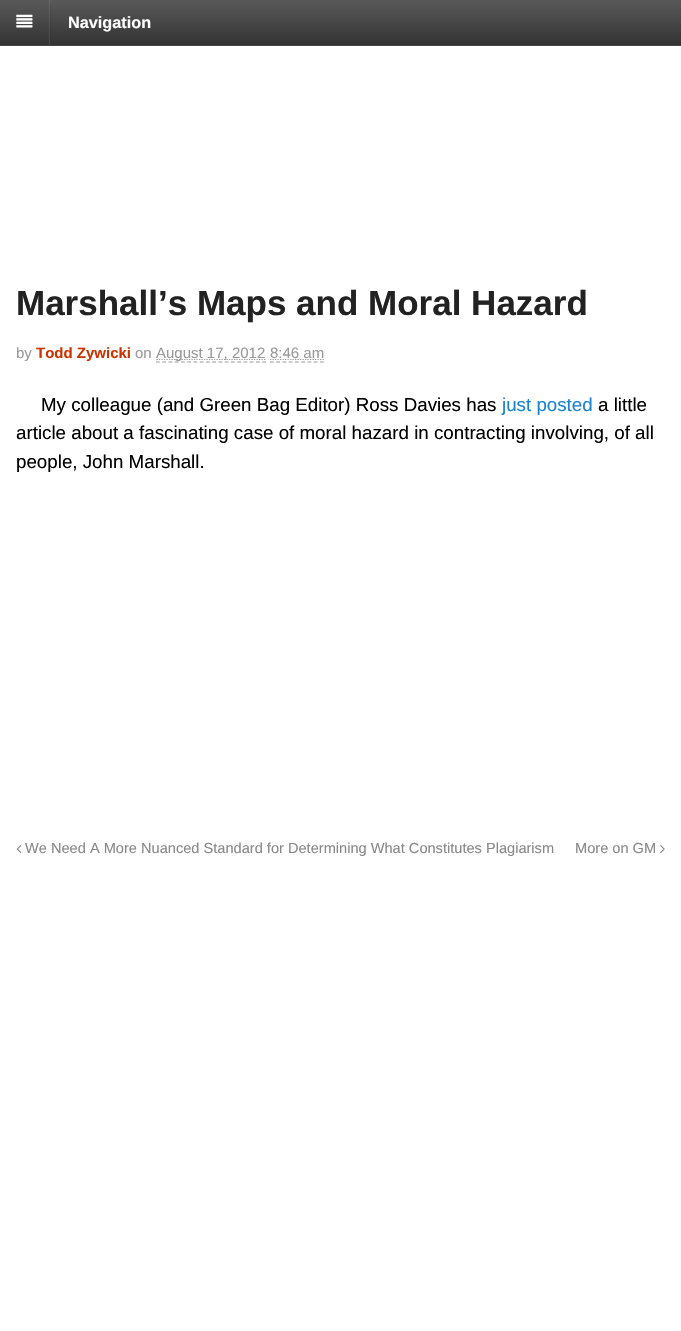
void draw(SkCanvas* canvas) {
    SkPaint paint;
    paint.setAntiAlias(true);
    canvas->clear(0xFFFFFFFF);
    {
        const SkColor colors[] = {0xFF595959, 0xFF333333};
        const float stops[] = {0, 1};
        const SkPoint ends[] = {{341, 0}, {341, 45}};
        paint.setShader(SkGradientShader::MakeLinear(ends, colors, stops, 2, SkTileMode::kClamp));
        paint.setAlpha(255);
    }
    canvas->drawRect(SkRect::MakeXYWH(0, 0, 681, 45), paint);
    {
        const SkColor colors[] = {0xFF505050, 0xFF2E2E2E};
        const float stops[] = {0, 1};
        const SkPoint ends[] = {{341, 0}, {341, 45}};
        paint.setShader(SkGradientShader::MakeLinear(ends, colors, stops, 2, SkTileMode::kClamp));
        paint.setAlpha(255);
    }
    canvas->drawRect(SkRect::MakeXYWH(50, 5, 1, 35), paint);
    {
        const SkColor colors[] = {0xFF6A6A6A, 0xFF474747};
        const float stops[] = {0, 1};
        const SkPoint ends[] = {{341, 0}, {341, 45}};
        paint.setShader(SkGradientShader::MakeLinear(ends, colors, stops, 2, SkTileMode::kClamp));
        paint.setAlpha(255);
    }
    canvas->drawRect(SkRect::MakeXYWH(49, 0, 1, 45), paint);
    paint.setShader(nullptr);
    paint.setColor(0xFF474747);
    canvas->drawRect(SkRect::MakeXYWH(0, 45, 681, 1), paint);
    canvas->drawImageRect(SkImages::DeferredFromEncodedData(SkData::MakeFromFileName("img1.png")), SkRect::MakeXYWH(16, 14, 17, 14), SkSamplingOptions());
    SkFont font1(fontMgr->matchFamilyStyle("Liberation Sans", SkFontStyle::Bold()), 16.25f);
    font1.setSubpixel(true);
    paint.setColor(0xFFFFFFFF);
    canvas->drawString("Navigation", 68, 28, font1, paint);
    SkFont font2(fontMgr->matchFamilyStyle("Liberation Sans", SkFontStyle::Bold()), 35);
    font2.setSubpixel(true);
    paint.setColor(0xFF222222);
    canvas->drawString("Marshall’s Maps and Moral Hazard", 16, 315, font2, paint);
    SkFont font3(fontMgr->matchFamilyStyle("Liberation Sans", SkFontStyle::Normal()), 15);
    font3.setSubpixel(true);
    paint.setColor(0xFF999999);
    canvas->drawString("by", 16, 358, font3, paint);
    SkFont font4(fontMgr->matchFamilyStyle("Liberation Sans", SkFontStyle::Bold()), 15);
    font4.setSubpixel(true);
    paint.setColor(0xFFCC3300);
    canvas->drawString("Todd Zywicki", 36, 358, font4, paint);
    paint.setColor(0xFF999999);
    canvas->drawString("on", 135, 358, font3, paint);
    paint.setStyle(SkPaint::kStroke_Style);
    paint.setStrokeWidth(1.2f);
    paint.setPathEffect(SkDashPathEffect::Make({{3.75f, 2.5f}}, 0));
    canvas->drawPath(SkPathBuilder().moveTo(156, 362).lineTo(266, 362).detach(), paint);
    paint.setPathEffect(nullptr);
    paint.setPathEffect(SkDashPathEffect::Make({{1.25f, 1.25f}}, 0));
    canvas->drawPath(SkPathBuilder().moveTo(156.5f, 359.5f).lineTo(265.5f, 359.5f).detach(), paint);
    paint.setPathEffect(nullptr);
    paint.setStyle(SkPaint::kFill_Style);
    canvas->drawString("August 17, 2012", 156, 358, font3, paint);
    paint.setStyle(SkPaint::kStroke_Style);
    paint.setPathEffect(SkDashPathEffect::Make({{1.25f, 1.25f}}, 0));
    canvas->drawPath(SkPathBuilder().moveTo(270, 359.5f).lineTo(324, 359.5f).detach(), paint);
    paint.setPathEffect(nullptr);
    paint.setStyle(SkPaint::kFill_Style);
    canvas->drawString("8:46 am", 270, 358, font3, paint);
    paint.setStyle(SkPaint::kStroke_Style);
    paint.setPathEffect(SkDashPathEffect::Make({{3.75f, 2.5f}}, 0));
    canvas->drawPath(SkPathBuilder().moveTo(270, 362).lineTo(324, 362).detach(), paint);
    paint.setPathEffect(nullptr);
    SkFont font5(fontMgr->matchFamilyStyle("Liberation Sans", SkFontStyle::Normal()), 18.75f);
    font5.setSubpixel(true);
    paint.setStyle(SkPaint::kFill_Style);
    paint.setColor(0xFF000000);
    canvas->drawString("My colleague (and Green Bag Editor) Ross Davies has", 41, 411, font5, paint);
    paint.setColor(0xFF1982D1);
    canvas->drawString("just posted", 502, 411, font5, paint);
    paint.setColor(0xFF000000);
    canvas->drawString("a little", 598, 411, font5, paint);
    canvas->drawString("article about a fascinating case of moral hazard in contracting involving, of all", 16, 439, font5, paint);
    canvas->drawString("people, John Marshall.", 16, 468, font5, paint);
    canvas->drawImageRect(SkImages::DeferredFromEncodedData(SkData::MakeFromFileName("img2.png")), SkRect::MakeXYWH(16, 845, 6, 8), SkSamplingOptions());
    SkFont font6(fontMgr->matchFamilyStyle("Liberation Sans", SkFontStyle::Normal()), 14.6f);
    font6.setSubpixel(true);
    paint.setColor(0xFF888888);
    canvas->drawString("We Need A More Nuanced Standard for Determining What Constitutes Plagiarism", 25, 853, font6, paint);
    canvas->drawString("More on GM", 575, 853, font6, paint);
    canvas->drawImageRect(SkImages::DeferredFromEncodedData(SkData::MakeFromFileName("img3.png")), SkRect::MakeXYWH(660, 845, 5, 8), SkSamplingOptions());
}
